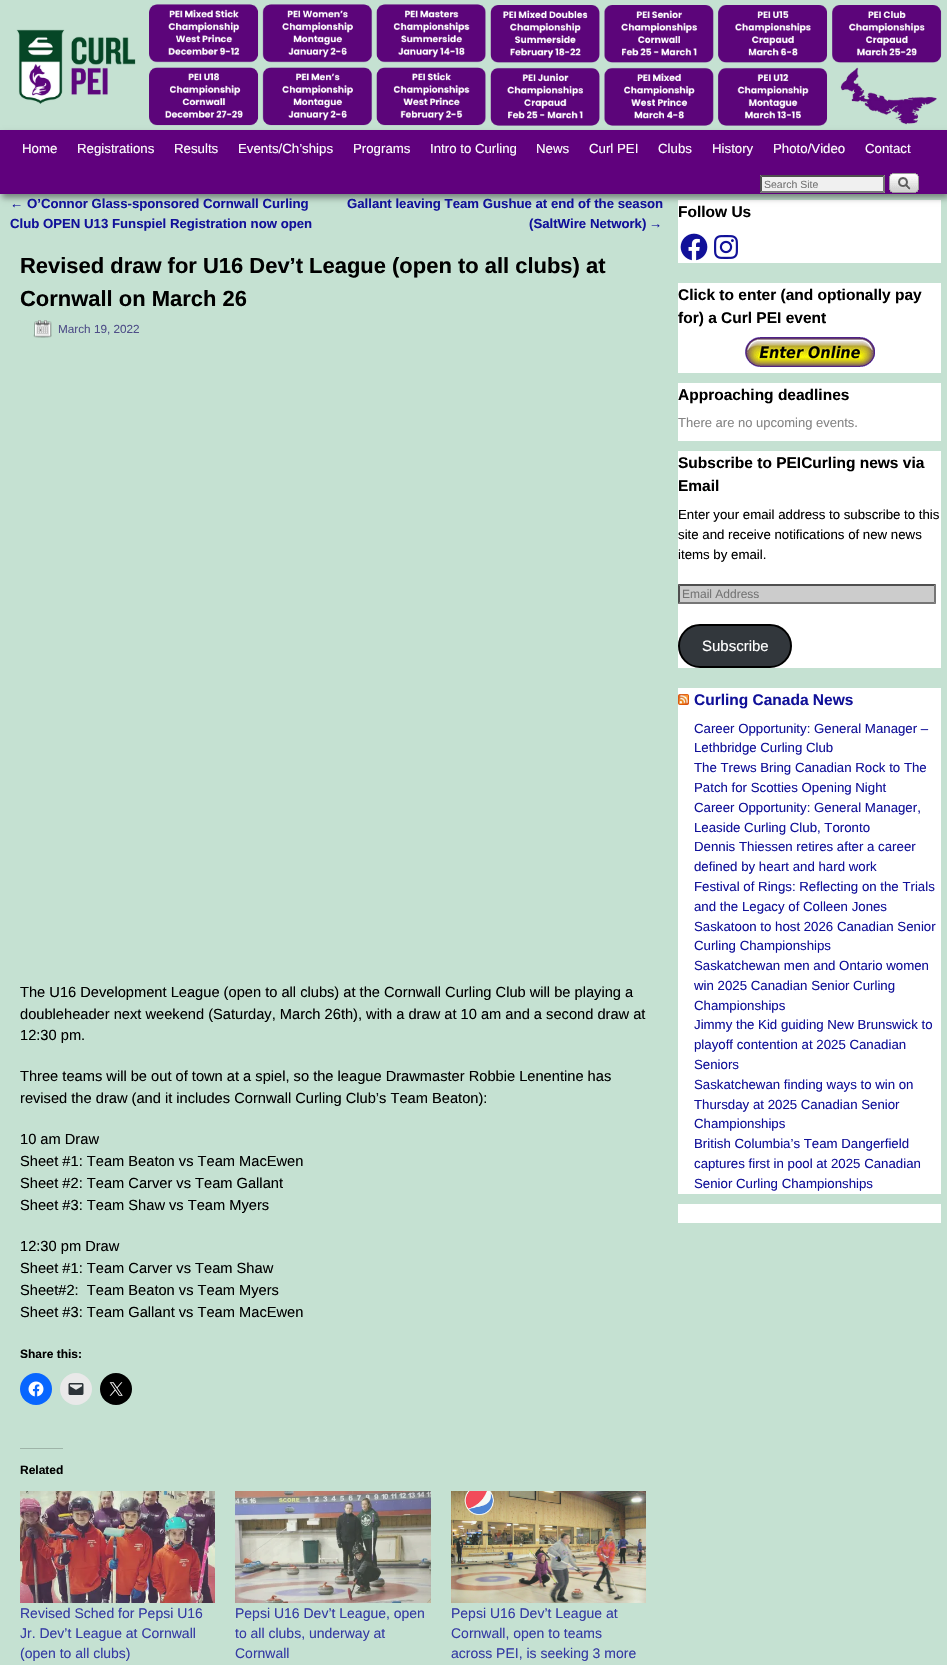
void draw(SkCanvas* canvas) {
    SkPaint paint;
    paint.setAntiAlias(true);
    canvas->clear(0xFFC5E1D2);
    canvas->drawImageRect(SkImages::DeferredFromEncodedData(SkData::MakeFromFileName("img1.png")), SkRect::MakeXYWH(16, 4, 926, 122), SkSamplingOptions());
    paint.setColor(0xFFFFFFFF);
    canvas->drawRect(SkRect::MakeXYWH(678, 200, 263, 63), paint);
    paint.setColor(0x66000000);
    paint.setMaskFilter(SkMaskFilter::MakeBlur(kNormal_SkBlurStyle, 3));
    canvas->drawRect(SkRect::MakeXYWH(2, 134, 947, 64), paint);
    paint.setMaskFilter(nullptr);
    paint.setColor(0xFF60017D);
    canvas->drawRect(SkRect::MakeXYWH(0, 130, 947, 64), paint);
    SkFont font1(fontMgr->matchFamilyStyle("Liberation Sans", SkFontStyle::Normal()), 13.25f);
    font1.setSubpixel(true);
    paint.setColor(0xFFFFFFFF);
    canvas->drawString("Home", 22, 153, font1, paint);
    canvas->drawString("Registrations", 77, 153, font1, paint);
    canvas->drawString("Results", 174, 153, font1, paint);
    canvas->drawString("Events/Ch’ships", 238, 153, font1, paint);
    canvas->drawString("Programs", 353, 153, font1, paint);
    canvas->drawString("Intro to Curling", 430, 153, font1, paint);
    canvas->drawString("News", 536, 153, font1, paint);
    canvas->drawString("Curl PEI", 589, 153, font1, paint);
    canvas->drawString("Clubs", 658, 153, font1, paint);
    canvas->drawString("History", 712, 153, font1, paint);
    canvas->drawString("Photo/Video", 773, 153, font1, paint);
    canvas->drawString("Contact", 865, 153, font1, paint);
    paint.setColor(0xFFF0F0F0);
    canvas->drawRect(SkRect::MakeXYWH(760, 175, 125, 18), paint);
    paint.setColor(0xFF4F4F4F);
    canvas->drawPath(SkPathBuilder().moveTo(760, 175).lineTo(885, 175).lineTo(883, 177).lineTo(762, 177).close().detach(), paint);
    paint.setColor(0xFF767676);
    canvas->drawPath(SkPathBuilder().moveTo(885, 175).lineTo(885, 193).lineTo(883, 191).lineTo(883, 177).close().detach(), paint);
    canvas->drawPath(SkPathBuilder().moveTo(885, 193).lineTo(760, 193).lineTo(762, 191).lineTo(883, 191).close().detach(), paint);
    paint.setColor(0xFF4F4F4F);
    canvas->drawPath(SkPathBuilder().moveTo(760, 193).lineTo(760, 175).lineTo(762, 177).lineTo(762, 191).close().detach(), paint);
    SkFont font2(fontMgr->matchFamilyStyle("Liberation Sans", SkFontStyle::Normal()), 10.5f);
    font2.setSubpixel(true);
    paint.setColor(0xFF757575);
    canvas->drawString("Search Site", 764, 188, font2, paint);
    canvas->drawImageRect(SkImages::DeferredFromEncodedData(SkData::MakeFromFileName("img2.png")), SkRect::MakeXYWH(889, 173, 30, 20), SkSamplingOptions());
    SkFont font3(fontMgr->matchFamilyStyle("Liberation Sans", SkFontStyle::Normal()), 13.2f);
    font3.setSubpixel(true);
    paint.setColor(0xFF111199);
    canvas->drawString("←", 10, 208, font3, paint);
    SkFont font4(fontMgr->matchFamilyStyle("Liberation Sans", SkFontStyle::Bold()), 13.2f);
    font4.setSubpixel(true);
    canvas->drawString("O’Connor Glass-sponsored Cornwall Curling", 27, 208, font4, paint);
    canvas->drawString("Club OPEN U13 Funspiel Registration now open", 10, 228, font4, paint);
    canvas->drawString("Gallant leaving Team Gushue at end of the season", 347, 208, font4, paint);
    canvas->drawString("(SaltWire Network)", 529, 228, font4, paint);
    canvas->drawString("→", 649, 228, font3, paint);
    SkFont font5(fontMgr->matchFamilyStyle("Liberation Sans", SkFontStyle::Bold()), 21.95f);
    font5.setSubpixel(true);
    paint.setColor(0xFF000000);
    canvas->drawString("Revised draw for U16 Dev’t League (open to all clubs) at", 20, 273, font5, paint);
    canvas->drawString("Cornwall on March 26", 20, 306, font5, paint);
    canvas->drawImageRect(SkImages::DeferredFromEncodedData(SkData::MakeFromFileName("img3.png")), SkRect::MakeXYWH(33, 320, 19, 18), SkSamplingOptions());
    SkFont font6(fontMgr->matchFamilyStyle("Liberation Sans", SkFontStyle::Normal()), 11.75f);
    font6.setSubpixel(true);
    paint.setColor(0xFF4F4F88);
    canvas->drawString("March 19, 2022", 58, 333, font6, paint);
    SkFont font7(fontMgr->matchFamilyStyle("Liberation Sans", SkFontStyle::Normal()), 14.65f);
    font7.setSubpixel(true);
    paint.setColor(0xFF000000);
    canvas->drawString("The U16 Development League (open to all clubs) at the Cornwall Curling Club will be playing a", 20, 997, font7, paint);
    canvas->drawString("doubleheader next weekend (Saturday, March 26th), with a draw at 10 am and a second draw at", 20, 1019, font7, paint);
    canvas->drawString("12:30 pm.", 20, 1040, font7, paint);
    canvas->drawString("Three teams will be out of town at a spiel, so the league Drawmaster Robbie Lenentine has", 20, 1081, font7, paint);
    canvas->drawString("revised the draw (and it includes Cornwall Curling Club’s Team Beaton):", 20, 1103, font7, paint);
    canvas->drawString("10 am Draw", 20, 1144, font7, paint);
    canvas->drawString("Sheet #1: Team Beaton vs Team MacEwen", 20, 1166, font7, paint);
    canvas->drawString("Sheet #2: Team Carver vs Team Gallant", 20, 1188, font7, paint);
    canvas->drawString("Sheet #3: Team Shaw vs Team Myers", 20, 1210, font7, paint);
    canvas->drawString("12:30 pm Draw", 20, 1251, font7, paint);
    canvas->drawString("Sheet #1: Team Carver vs Team Shaw", 20, 1273, font7, paint);
    canvas->drawString("Sheet#2:  Team Beaton vs Team Myers", 20, 1295, font7, paint);
    canvas->drawString("Sheet #3: Team Gallant vs Team MacEwen", 20, 1317, font7, paint);
    SkFont font8(fontMgr->matchFamilyStyle("Liberation Sans", SkFontStyle::Bold()), 12);
    font8.setSubpixel(true);
    canvas->drawString("Share this:", 20, 1358, font8, paint);
    paint.setColor(0xFF0866FF);
    canvas->drawCircle(36, 1389, 16, paint);
    canvas->drawImageRect(SkImages::DeferredFromEncodedData(SkData::MakeFromFileName("img4.png")), SkRect::MakeXYWH(28, 1381, 16, 16), SkSamplingOptions());
    paint.setColor(0xFFE9E9E9);
    canvas->drawCircle(76, 1389, 16, paint);
    canvas->drawImageRect(SkImages::DeferredFromEncodedData(SkData::MakeFromFileName("img5.png")), SkRect::MakeXYWH(68, 1383, 16, 12), SkSamplingOptions());
    paint.setColor(0xFF000000);
    canvas->drawCircle(116, 1389, 16, paint);
    canvas->drawImageRect(SkImages::DeferredFromEncodedData(SkData::MakeFromFileName("img6.png")), SkRect::MakeXYWH(109, 1382, 14, 14), SkSamplingOptions());
    paint.setColor(0xFF9EB4A8);
    canvas->drawRect(SkRect::MakeXYWH(20, 1448, 43, 1), paint);
    paint.setColor(0xFF000000);
    canvas->drawString("Related", 20, 1474, font8, paint);
    canvas->drawImageRect(SkImages::DeferredFromEncodedData(SkData::MakeFromFileName("img7.png")), SkRect::MakeXYWH(20, 1491, 195, 112), SkSamplingOptions());
    SkFont font9(fontMgr->matchFamilyStyle("Liberation Sans", SkFontStyle::Normal()), 14);
    font9.setSubpixel(true);
    paint.setColor(0xFF353BA4);
    canvas->drawString("Revised Sched for Pepsi U16", 20, 1618, font9, paint);
    canvas->drawString("Jr. Dev’t League at Cornwall", 20, 1638, font9, paint);
    canvas->drawString("(open to all clubs)", 20, 1658, font9, paint);
    canvas->drawImageRect(SkImages::DeferredFromEncodedData(SkData::MakeFromFileName("img8.png")), SkRect::MakeXYWH(235, 1491, 196, 112), SkSamplingOptions());
    canvas->drawString("Pepsi U16 Dev’t League, open", 235, 1618, font9, paint);
    canvas->drawString("to all clubs, underway at", 235, 1638, font9, paint);
    canvas->drawString("Cornwall", 235, 1658, font9, paint);
    canvas->drawImageRect(SkImages::DeferredFromEncodedData(SkData::MakeFromFileName("img9.png")), SkRect::MakeXYWH(451, 1491, 195, 112), SkSamplingOptions());
    canvas->drawString("Pepsi U16 Dev’t League at", 451, 1618, font9, paint);
    canvas->drawString("Cornwall, open to teams", 451, 1638, font9, paint);
    canvas->drawString("across PEI, is seeking 3 more", 451, 1658, font9, paint);
    SkFont font10(fontMgr->matchFamilyStyle("Liberation Sans", SkFontStyle::Bold()), 15.5f);
    font10.setSubpixel(true);
    paint.setColor(0xFF000000);
    canvas->drawString("Follow Us", 678, 217, font10, paint);
    canvas->drawImageRect(SkImages::DeferredFromEncodedData(SkData::MakeFromFileName("img10.png")), SkRect::MakeXYWH(680, 233, 28, 28), SkSamplingOptions());
    canvas->drawImageRect(SkImages::DeferredFromEncodedData(SkData::MakeFromFileName("img11.png")), SkRect::MakeXYWH(714, 235, 24, 24), SkSamplingOptions());
    paint.setColor(0xFFFFFFFF);
    canvas->drawRect(SkRect::MakeXYWH(678, 283, 263, 90), paint);
    paint.setColor(0xFF000000);
    canvas->drawString("Click to enter (and optionally pay", 678, 300, font10, paint);
    canvas->drawString("for) a Curl PEI event", 678, 323, font10, paint);
    canvas->drawImageRect(SkImages::DeferredFromEncodedData(SkData::MakeFromFileName("img12.png")), SkRect::MakeXYWH(745, 337, 130, 30), SkSamplingOptions());
    paint.setColor(0xFFFFFFFF);
    canvas->drawRect(SkRect::MakeXYWH(678, 383, 263, 58), paint);
    paint.setColor(0xFF000000);
    canvas->drawString("Approaching deadlines", 678, 400, font10, paint);
    SkFont font11(fontMgr->matchFamilyStyle("Liberation Sans", SkFontStyle::Normal()), 13);
    font11.setSubpixel(true);
    paint.setColor(0xFF858585);
    canvas->drawString("There are no upcoming events.", 678, 427, font11, paint);
    paint.setColor(0xFFFFFFFF);
    canvas->drawRect(SkRect::MakeXYWH(678, 451, 263, 217), paint);
    paint.setColor(0xFF000000);
    canvas->drawString("Subscribe to PEICurling news via", 678, 468, font10, paint);
    canvas->drawString("Email", 678, 491, font10, paint);
    canvas->drawString("Enter your email address to subscribe to this", 678, 519, font1, paint);
    canvas->drawString("site and receive notifications of new news", 678, 539, font1, paint);
    canvas->drawString("items by email.", 678, 559, font1, paint);
    paint.setColor(0xFFCCCCCC);
    canvas->drawRect(SkRect::MakeXYWH(678, 584, 258, 20), paint);
    paint.setColor(0xFF4F4F4F);
    canvas->drawPath(SkPathBuilder().moveTo(678, 584).lineTo(936, 584).lineTo(934, 586).lineTo(680, 586).close().detach(), paint);
    paint.setColor(0xFF767676);
    canvas->drawPath(SkPathBuilder().moveTo(936, 584).lineTo(936, 604).lineTo(934, 602).lineTo(934, 586).close().detach(), paint);
    canvas->drawPath(SkPathBuilder().moveTo(936, 604).lineTo(678, 604).lineTo(680, 602).lineTo(934, 602).close().detach(), paint);
    paint.setColor(0xFF4F4F4F);
    canvas->drawPath(SkPathBuilder().moveTo(678, 604).lineTo(678, 584).lineTo(680, 586).lineTo(680, 602).close().detach(), paint);
    SkFont font12(fontMgr->matchFamilyStyle("Liberation Sans", SkFontStyle::Normal()), 12);
    font12.setSubpixel(true);
    paint.setColor(0xFF757575);
    canvas->drawString("Email Address", 682, 598, font12, paint);
    paint.setColor(0xFF32373C);
    canvas->drawRoundRect(SkRect::MakeXYWH(679, 625, 112, 42), 21, 21, paint);
    paint.setStyle(SkPaint::kStroke_Style);
    paint.setStrokeWidth(2);
    paint.setColor(0xFF000000);
    canvas->drawRoundRect(SkRect::MakeXYWH(679, 625, 112, 42), 21, 21, paint);
    SkFont font13(fontMgr->matchFamilyStyle("Liberation Sans", SkFontStyle::Normal()), 15);
    font13.setSubpixel(true);
    paint.setStyle(SkPaint::kFill_Style);
    paint.setColor(0xFFFFFFFF);
    canvas->drawString("Subscribe", 702, 651, font13, paint);
    canvas->drawRect(SkRect::MakeXYWH(678, 688, 263, 506), paint);
    canvas->drawImageRect(SkImages::DeferredFromEncodedData(SkData::MakeFromFileName("img13.png")), SkRect::MakeXYWH(678, 694, 11, 11), SkSamplingOptions());
    paint.setColor(0xFF111199);
    canvas->drawString("Curling Canada News", 694, 705, font10, paint);
    canvas->drawString("Career Opportunity: General Manager –", 694, 733, font1, paint);
    canvas->drawString("Lethbridge Curling Club", 694, 752, font1, paint);
    canvas->drawString("The Trews Bring Canadian Rock to The", 694, 772, font1, paint);
    canvas->drawString("Patch for Scotties Opening Night", 694, 792, font1, paint);
    canvas->drawString("Career Opportunity: General Manager,", 694, 812, font1, paint);
    canvas->drawString("Leaside Curling Club, Toronto", 694, 832, font1, paint);
    canvas->drawString("Dennis Thiessen retires after a career", 694, 851, font1, paint);
    canvas->drawString("defined by heart and hard work", 694, 871, font1, paint);
    canvas->drawString("Festival of Rings: Reflecting on the Trials", 694, 891, font1, paint);
    canvas->drawString("and the Legacy of Colleen Jones", 694, 911, font1, paint);
    canvas->drawString("Saskatoon to host 2026 Canadian Senior", 694, 931, font1, paint);
    canvas->drawString("Curling Championships", 694, 950, font1, paint);
    canvas->drawString("Saskatchewan men and Ontario women", 694, 970, font1, paint);
    canvas->drawString("win 2025 Canadian Senior Curling", 694, 990, font1, paint);
    canvas->drawString("Championships", 694, 1010, font1, paint);
    canvas->drawString("Jimmy the Kid guiding New Brunswick to", 694, 1029, font1, paint);
    canvas->drawString("playoff contention at 2025 Canadian", 694, 1049, font1, paint);
    canvas->drawString("Seniors", 694, 1069, font1, paint);
    canvas->drawString("Saskatchewan finding ways to win on", 694, 1089, font1, paint);
    canvas->drawString("Thursday at 2025 Canadian Senior", 694, 1109, font1, paint);
    canvas->drawString("Championships", 694, 1128, font1, paint);
    canvas->drawString("British Columbia’s Team Dangerfield", 694, 1148, font1, paint);
    canvas->drawString("captures first in pool at 2025 Canadian", 694, 1168, font1, paint);
    canvas->drawString("Senior Curling Championships", 694, 1188, font1, paint);
    paint.setColor(0xFFFFFFFF);
    canvas->drawRect(SkRect::MakeXYWH(678, 1204, 263, 19), paint);
}
